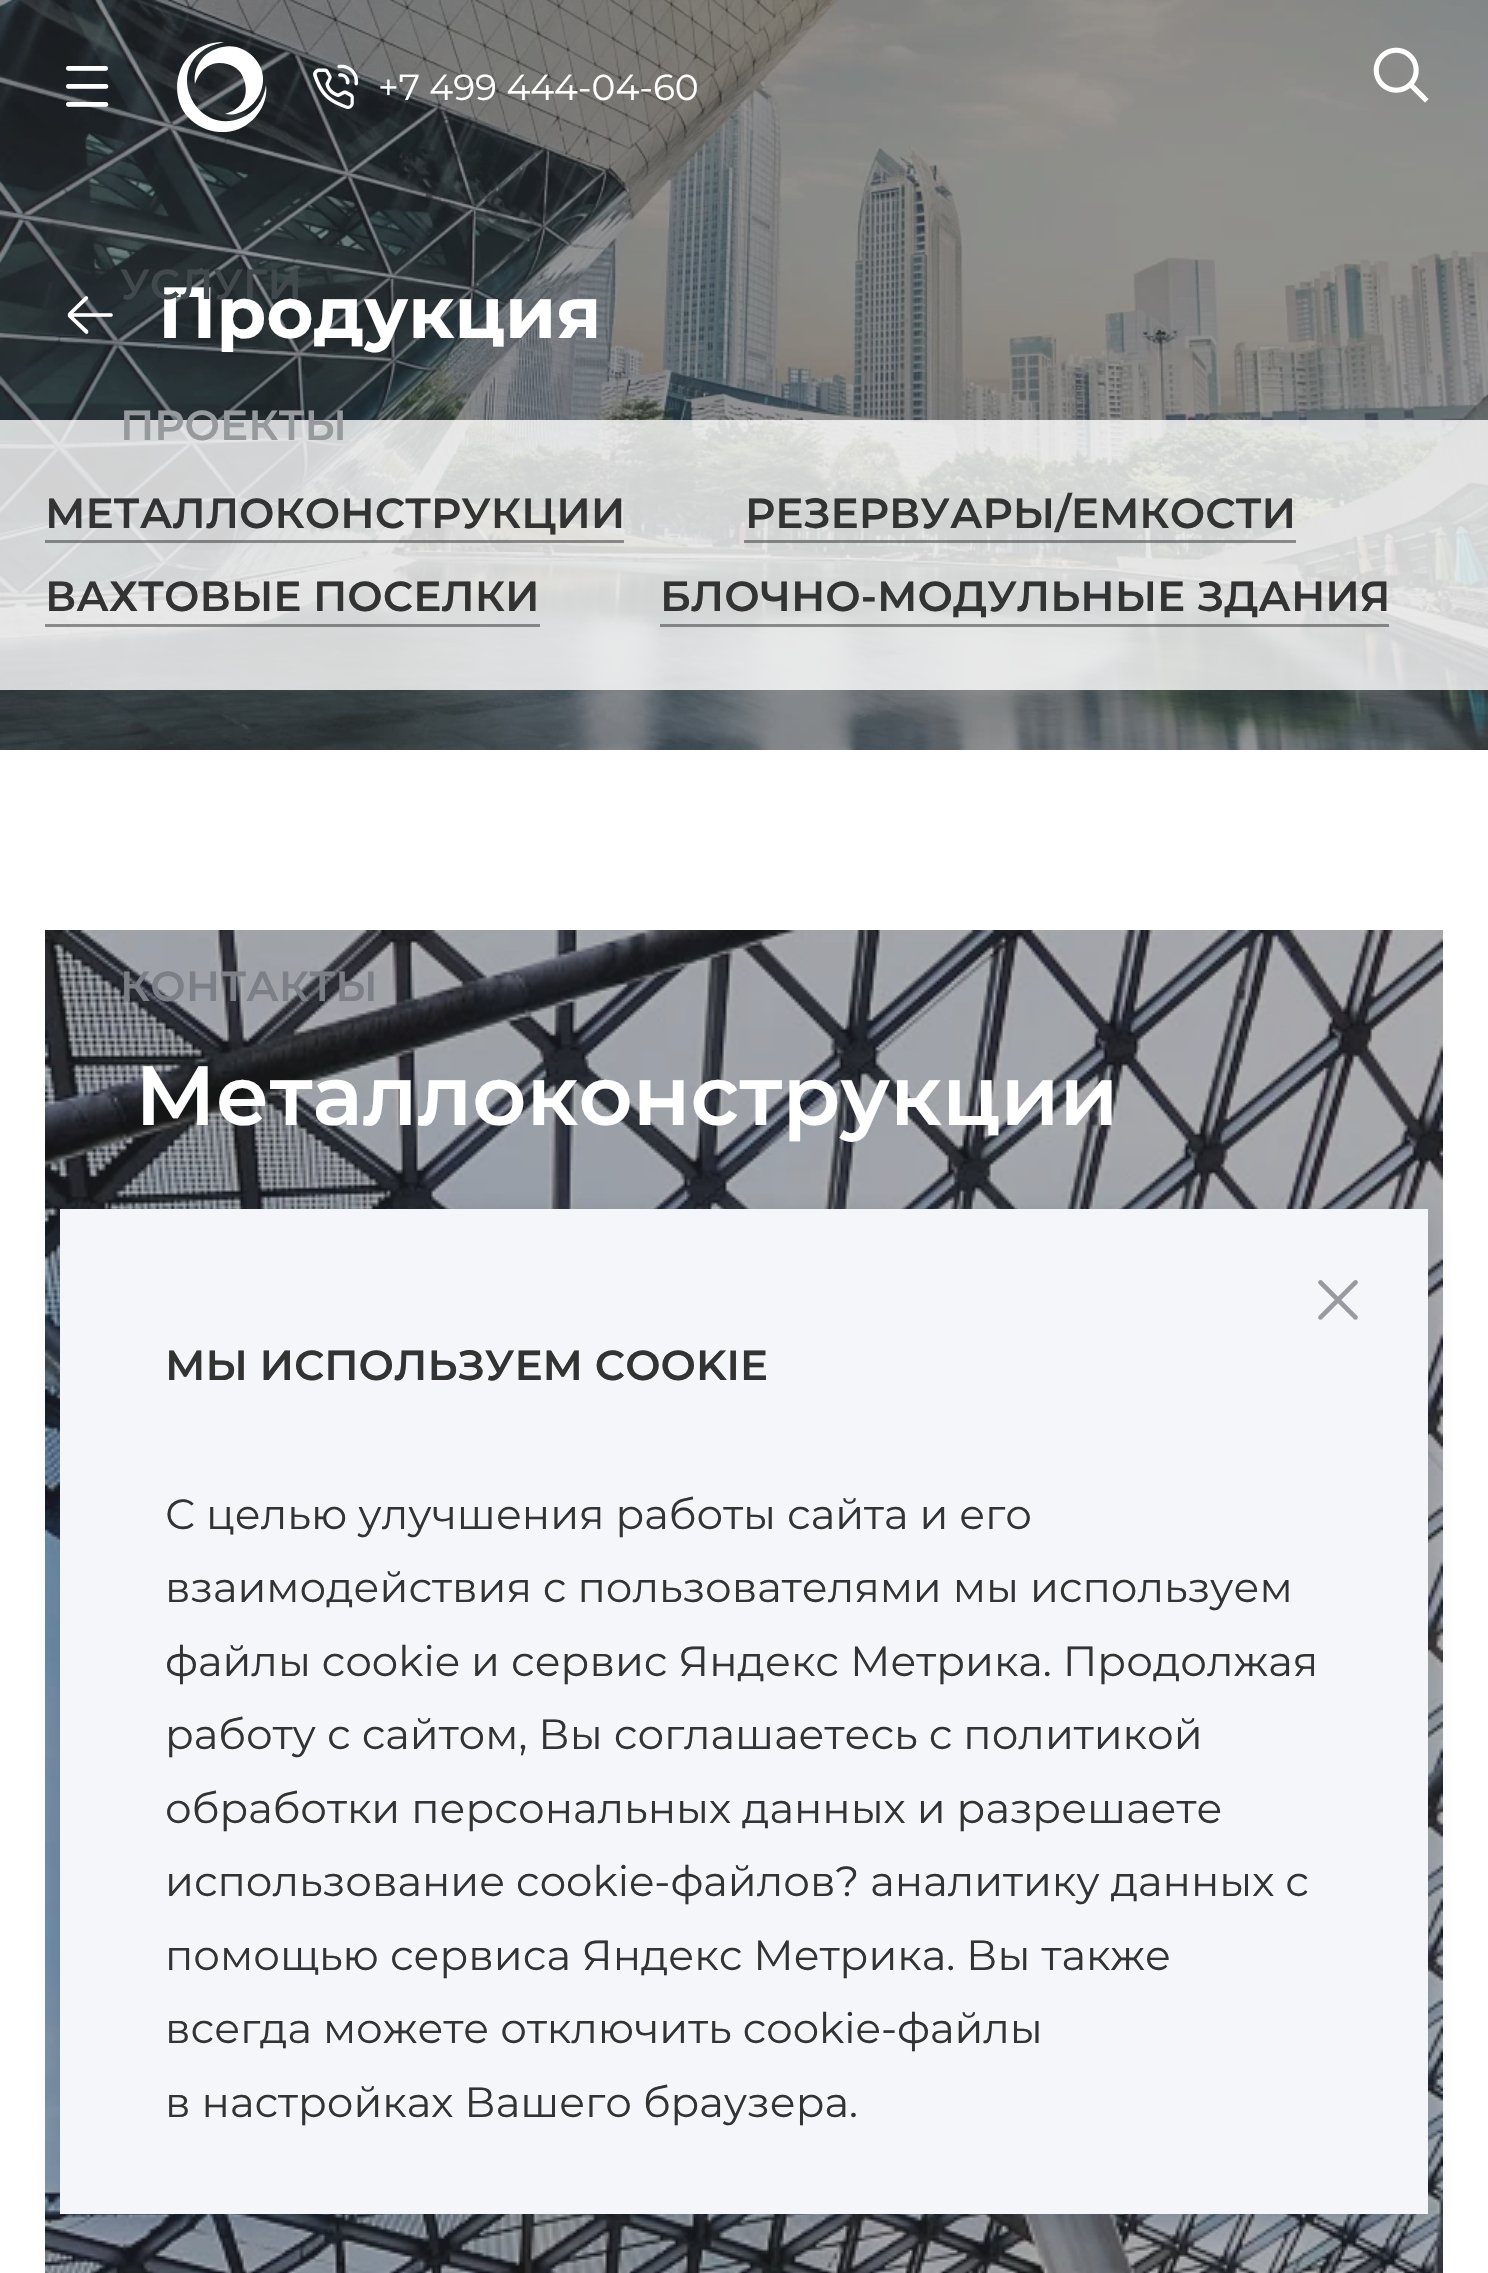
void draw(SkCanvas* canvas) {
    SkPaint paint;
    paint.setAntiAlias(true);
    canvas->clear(0xFFFFFFFF);
    canvas->drawImageRect(SkImages::DeferredFromEncodedData(SkData::MakeFromFileName("img4.png")), SkRect::MakeXYWH(0, 0, 1488, 750), SkSamplingOptions());
    canvas->drawImageRect(SkImages::DeferredFromEncodedData(SkData::MakeFromFileName("img1.png")), SkRect::MakeXYWH(66, 66, 43, 41), SkSamplingOptions());
    canvas->save();
    canvas->clipRect(SkRect::MakeXYWH(177, 42, 90, 90));
    paint.setColor(0xFFFFFFFF);
    canvas->drawPath(SkPathBuilder(SkPathFillType::kEvenOdd).moveTo(224, 42).cubicTo(217, 44, 211, 45, 205, 49).cubicTo(165, 74, 198, 136, 241, 118).cubicTo(255, 113, 264, 100, 266, 85).cubicTo(269, 106, 251, 130, 226, 132).cubicTo(212, 133, 198, 128, 188, 117).cubicTo(166, 94, 177, 42, 224, 42).close().detach(), paint);
    canvas->restore();
    canvas->drawPath(SkPathBuilder(SkPathFillType::kEvenOdd).moveTo(195, 84).cubicTo(193, 68, 202, 54, 216, 49).cubicTo(230, 43, 246, 47, 256, 60).cubicTo(276, 85, 250, 119, 225, 114).cubicTo(248, 107, 249, 89, 242, 75).cubicTo(236, 62, 205, 53, 195, 84).close().detach(), paint);
    canvas->drawImageRect(SkImages::DeferredFromEncodedData(SkData::MakeFromFileName("img2.png")), SkRect::MakeXYWH(313, 64, 46, 45), SkSamplingOptions());
    SkFont font1(fontMgr->matchFamilyStyle("Montserrat", SkFontStyle::Normal()), 36);
    font1.setSubpixel(true);
    canvas->drawString("+7 499 444-04-60", 378, 100, font1, paint);
    canvas->drawImageRect(SkImages::DeferredFromEncodedData(SkData::MakeFromFileName("img3.png")), SkRect::MakeXYWH(1373, 47, 56, 56), SkSamplingOptions());
    SkFont font2(fontMgr->matchFamilyStyle("Montserrat", SkFontStyle::Bold()), 72);
    font2.setSubpixel(true);
    canvas->drawString("Продукция", 158, 338, font2, paint);
    SkFont font3(fontMgr->matchFamilyStyle("Montserrat", SkFontStyle(600, SkFontStyle::kNormal_Width, SkFontStyle::kUpright_Slant)), 42);
    font3.setSubpixel(true);
    paint.setColor(0xFF41494C);
    canvas->drawString("УСЛУГИ", 120, 299, font3, paint);
    paint.setColor(0xCCFFFFFF);
    canvas->drawRect(SkRect::MakeXYWH(0, 420, 1488, 270), paint);
    paint.setColor(0xFF969A9C);
    canvas->drawString("ПРОЕКТЫ", 120, 440, font3, paint);
    canvas->drawImageRect(SkImages::DeferredFromEncodedData(SkData::MakeFromFileName("img6.png")), SkRect::MakeXYWH(45, 930, 1398, 1343), SkSamplingOptions());
    paint.setColor(0xFF7C7F86);
    canvas->drawString("КОНТАКТЫ", 120, 1001, font3, paint);
    canvas->drawImageRect(SkImages::DeferredFromEncodedData(SkData::MakeFromFileName("img5.png")), SkRect::MakeXYWH(67, 296, 46, 38), SkSamplingOptions());
    paint.setColor(0xFF333333);
    canvas->drawString("МЕТАЛЛОКОНСТРУКЦИИ", 45, 528, font3, paint);
    paint.setColor(0x4D333231);
    canvas->drawRect(SkRect::MakeXYWH(45, 540, 579, 3), paint);
    canvas->drawRect(SkRect::MakeXYWH(45, 540, 579, 3), paint);
    paint.setColor(0xFF333333);
    canvas->drawString("РЕЗЕРВУАРЫ/ЕМКОСТИ", 745, 528, font3, paint);
    paint.setColor(0x4D333231);
    canvas->drawRect(SkRect::MakeXYWH(744, 540, 552, 3), paint);
    canvas->drawRect(SkRect::MakeXYWH(744, 540, 552, 3), paint);
    paint.setColor(0xFF333333);
    canvas->drawString("ВАХТОВЫЕ ПОСЕЛКИ", 45, 611, font3, paint);
    paint.setColor(0x4D333231);
    canvas->drawRect(SkRect::MakeXYWH(45, 624, 495, 3), paint);
    canvas->drawRect(SkRect::MakeXYWH(45, 624, 495, 3), paint);
    paint.setColor(0xFF333333);
    canvas->drawString("БЛОЧНО-МОДУЛЬНЫЕ ЗДАНИЯ", 660, 611, font3, paint);
    paint.setColor(0x4D333231);
    canvas->drawRect(SkRect::MakeXYWH(660, 624, 729, 3), paint);
    canvas->drawRect(SkRect::MakeXYWH(660, 624, 729, 3), paint);
    SkFont font4(fontMgr->matchFamilyStyle("Montserrat", SkFontStyle(600, SkFontStyle::kNormal_Width, SkFontStyle::kUpright_Slant)), 84);
    font4.setSubpixel(true);
    paint.setColor(0xFFFFFFFF);
    canvas->drawString("Металлоконструкции", 135, 1125, font4, paint);
    paint.setColor(0x33223C50);
    paint.setMaskFilter(SkMaskFilter::MakeBlur(kNormal_SkBlurStyle, 12));
    canvas->drawRect(SkRect::MakeXYWH(60, 1215, 1368, 1005), paint);
    paint.setMaskFilter(nullptr);
    paint.setColor(0xFFF4F6F9);
    canvas->drawRect(SkRect::MakeXYWH(60, 1209, 1368, 1005), paint);
    canvas->drawImageRect(SkImages::DeferredFromEncodedData(SkData::MakeFromFileName("img7.png")), SkRect::MakeXYWH(1318, 1280, 40, 40), SkSamplingOptions());
    paint.setColor(0xFF333333);
    canvas->drawString("МЫ ИСПОЛЬЗУЕМ COOKIE", 165, 1380, font3, paint);
    SkFont font5(fontMgr->matchFamilyStyle("Montserrat", SkFontStyle::Normal()), 42);
    font5.setSubpixel(true);
    canvas->drawString("С целью улучшения работы сайта и его", 165, 1529, font5, paint);
    canvas->drawString("взаимодействия с пользователями мы используем", 165, 1602, font5, paint);
    canvas->drawString("файлы cookie и сервис Яндекс Метрика. Продолжая", 165, 1676, font5, paint);
    canvas->drawString("работу с сайтом, Вы соглашаетесь с политикой", 165, 1749, font5, paint);
    canvas->drawString("обработки персональных данных и разрешаете", 165, 1823, font5, paint);
    canvas->drawString("использование cookie-файлов? аналитику данных с", 165, 1896, font5, paint);
    canvas->drawString("помощью сервиса Яндекс Метрика. Вы также", 165, 1970, font5, paint);
    canvas->drawString("всегда можете отключить cookie-файлы", 165, 2043, font5, paint);
    canvas->drawString("в настройках Вашего браузера.", 165, 2117, font5, paint);
}
